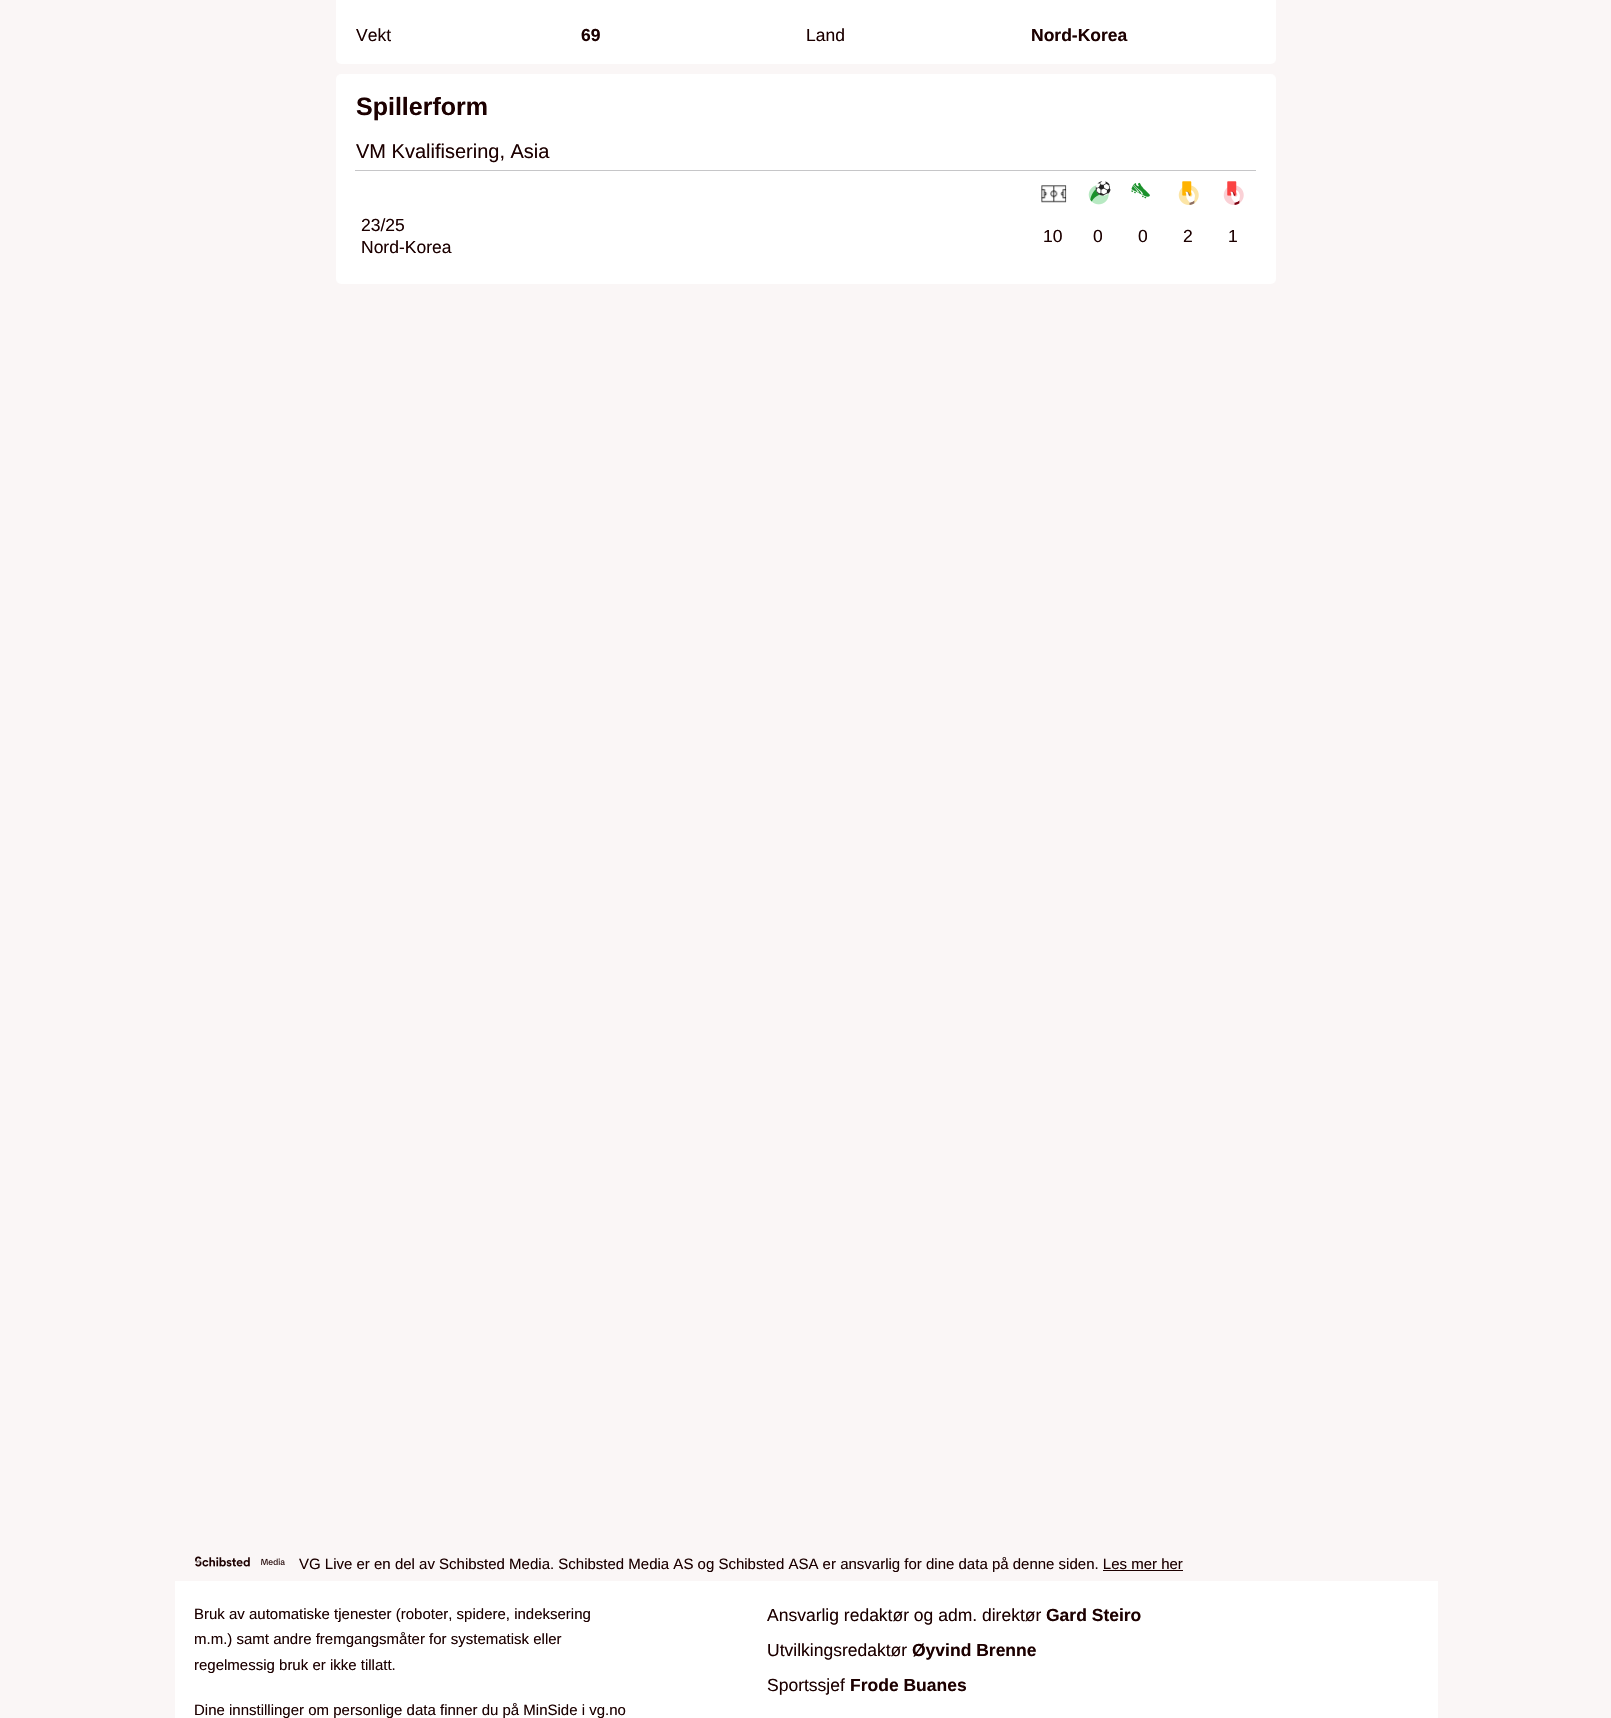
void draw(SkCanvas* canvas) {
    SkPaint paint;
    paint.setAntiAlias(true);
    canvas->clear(0xFFFAF6F6);
    paint.setColor(0xFFFFFFFF);
    canvas->drawRoundRect(SkRect::MakeXYWH(336, -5, 940, 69), 5, 5, paint);
    SkFont font1(fontMgr->matchFamilyStyle("Liberation Sans", SkFontStyle::Normal()), 17.5f);
    font1.setSubpixel(true);
    paint.setColor(0xFF1C0000);
    canvas->drawString("Vekt", 356, 41, font1, paint);
    SkFont font2(fontMgr->matchFamilyStyle("Liberation Sans", SkFontStyle::Bold()), 17.5f);
    font2.setSubpixel(true);
    canvas->drawString("69", 581, 41, font2, paint);
    canvas->drawString("Land", 806, 41, font1, paint);
    canvas->drawString("Nord-Korea", 1031, 41, font2, paint);
    paint.setColor(0xFFFFFFFF);
    canvas->drawRoundRect(SkRect::MakeXYWH(336, 74, 940, 210), 5, 5, paint);
    SkFont font3(fontMgr->matchFamilyStyle("Liberation Sans", SkFontStyle::Bold()), 25);
    font3.setSubpixel(true);
    paint.setColor(0xFF1C0000);
    canvas->drawString("Spillerform", 356, 115, font3, paint);
    paint.setColor(0xFFC6C6C8);
    canvas->drawRect(SkRect::MakeXYWH(355, 170, 901, 1), paint);
    SkFont font4(fontMgr->matchFamilyStyle("Liberation Sans", SkFontStyle::Normal()), 20);
    font4.setSubpixel(true);
    paint.setColor(0xFF1C0000);
    canvas->drawString("VM Kvalifisering, Asia", 356, 158, font4, paint);
    canvas->drawImageRect(SkImages::DeferredFromEncodedData(SkData::MakeFromFileName("img1.png")), SkRect::MakeXYWH(1041, 185, 26, 18), SkSamplingOptions());
    canvas->drawImageRect(SkImages::DeferredFromEncodedData(SkData::MakeFromFileName("img2.png")), SkRect::MakeXYWH(1088, 181, 23, 24), SkSamplingOptions());
    canvas->drawImageRect(SkImages::DeferredFromEncodedData(SkData::MakeFromFileName("img3.png")), SkRect::MakeXYWH(1131, 182, 19, 17), SkSamplingOptions());
    canvas->drawImageRect(SkImages::DeferredFromEncodedData(SkData::MakeFromFileName("img4.png")), SkRect::MakeXYWH(1178, 181, 21, 24), SkSamplingOptions());
    canvas->drawImageRect(SkImages::DeferredFromEncodedData(SkData::MakeFromFileName("img5.png")), SkRect::MakeXYWH(1223, 181, 21, 24), SkSamplingOptions());
    canvas->drawString("23/25", 361, 231, font1, paint);
    canvas->drawString("Nord-Korea", 361, 253, font1, paint);
    canvas->drawString("10", 1043, 242, font1, paint);
    canvas->drawString("0", 1093, 242, font1, paint);
    canvas->drawString("0", 1138, 242, font1, paint);
    canvas->drawString("2", 1183, 242, font1, paint);
    canvas->drawString("1", 1228, 242, font1, paint);
    canvas->drawImageRect(SkImages::DeferredFromEncodedData(SkData::MakeFromFileName("img6.png")), SkRect::MakeXYWH(195, 1556, 90, 11), SkSamplingOptions());
    SkFont font5(fontMgr->matchFamilyStyle("Liberation Sans", SkFontStyle::Normal()), 15);
    font5.setSubpixel(true);
    canvas->drawString("VG Live er en del av Schibsted Media. Schibsted Media AS og Schibsted ASA er ansvarlig for dine data på denne siden. Les mer her", 299, 1569, font5, paint);
    canvas->drawRect(SkRect::MakeXYWH(1103, 1570, 80, 1), paint);
    paint.setColor(0xFFFFFFFF);
    canvas->drawRect(SkRect::MakeXYWH(175, 1581, 1263, 137), paint);
    paint.setColor(0xFF1C0000);
    canvas->drawString("Bruk av automatiske tjenester (roboter, spidere, indeksering", 194, 1619, font5, paint);
    canvas->drawString("m.m.) samt andre fremgangsmåter for systematisk eller", 194, 1644, font5, paint);
    canvas->drawString("regelmessig bruk er ikke tillatt.", 194, 1670, font5, paint);
    canvas->drawString("Dine innstillinger om personlige data finner du på MinSide i vg.no", 194, 1715, font5, paint);
    canvas->drawString("Ansvarlig redaktør og adm. direktør", 767, 1621, font1, paint);
    canvas->drawString("Gard Steiro", 1046, 1621, font2, paint);
    canvas->drawString("Utvilkingsredaktør", 767, 1656, font1, paint);
    canvas->drawString("Øyvind Brenne", 912, 1656, font2, paint);
    canvas->drawString("Sportssjef", 767, 1691, font1, paint);
    canvas->drawString("Frode Buanes", 850, 1691, font2, paint);
}
